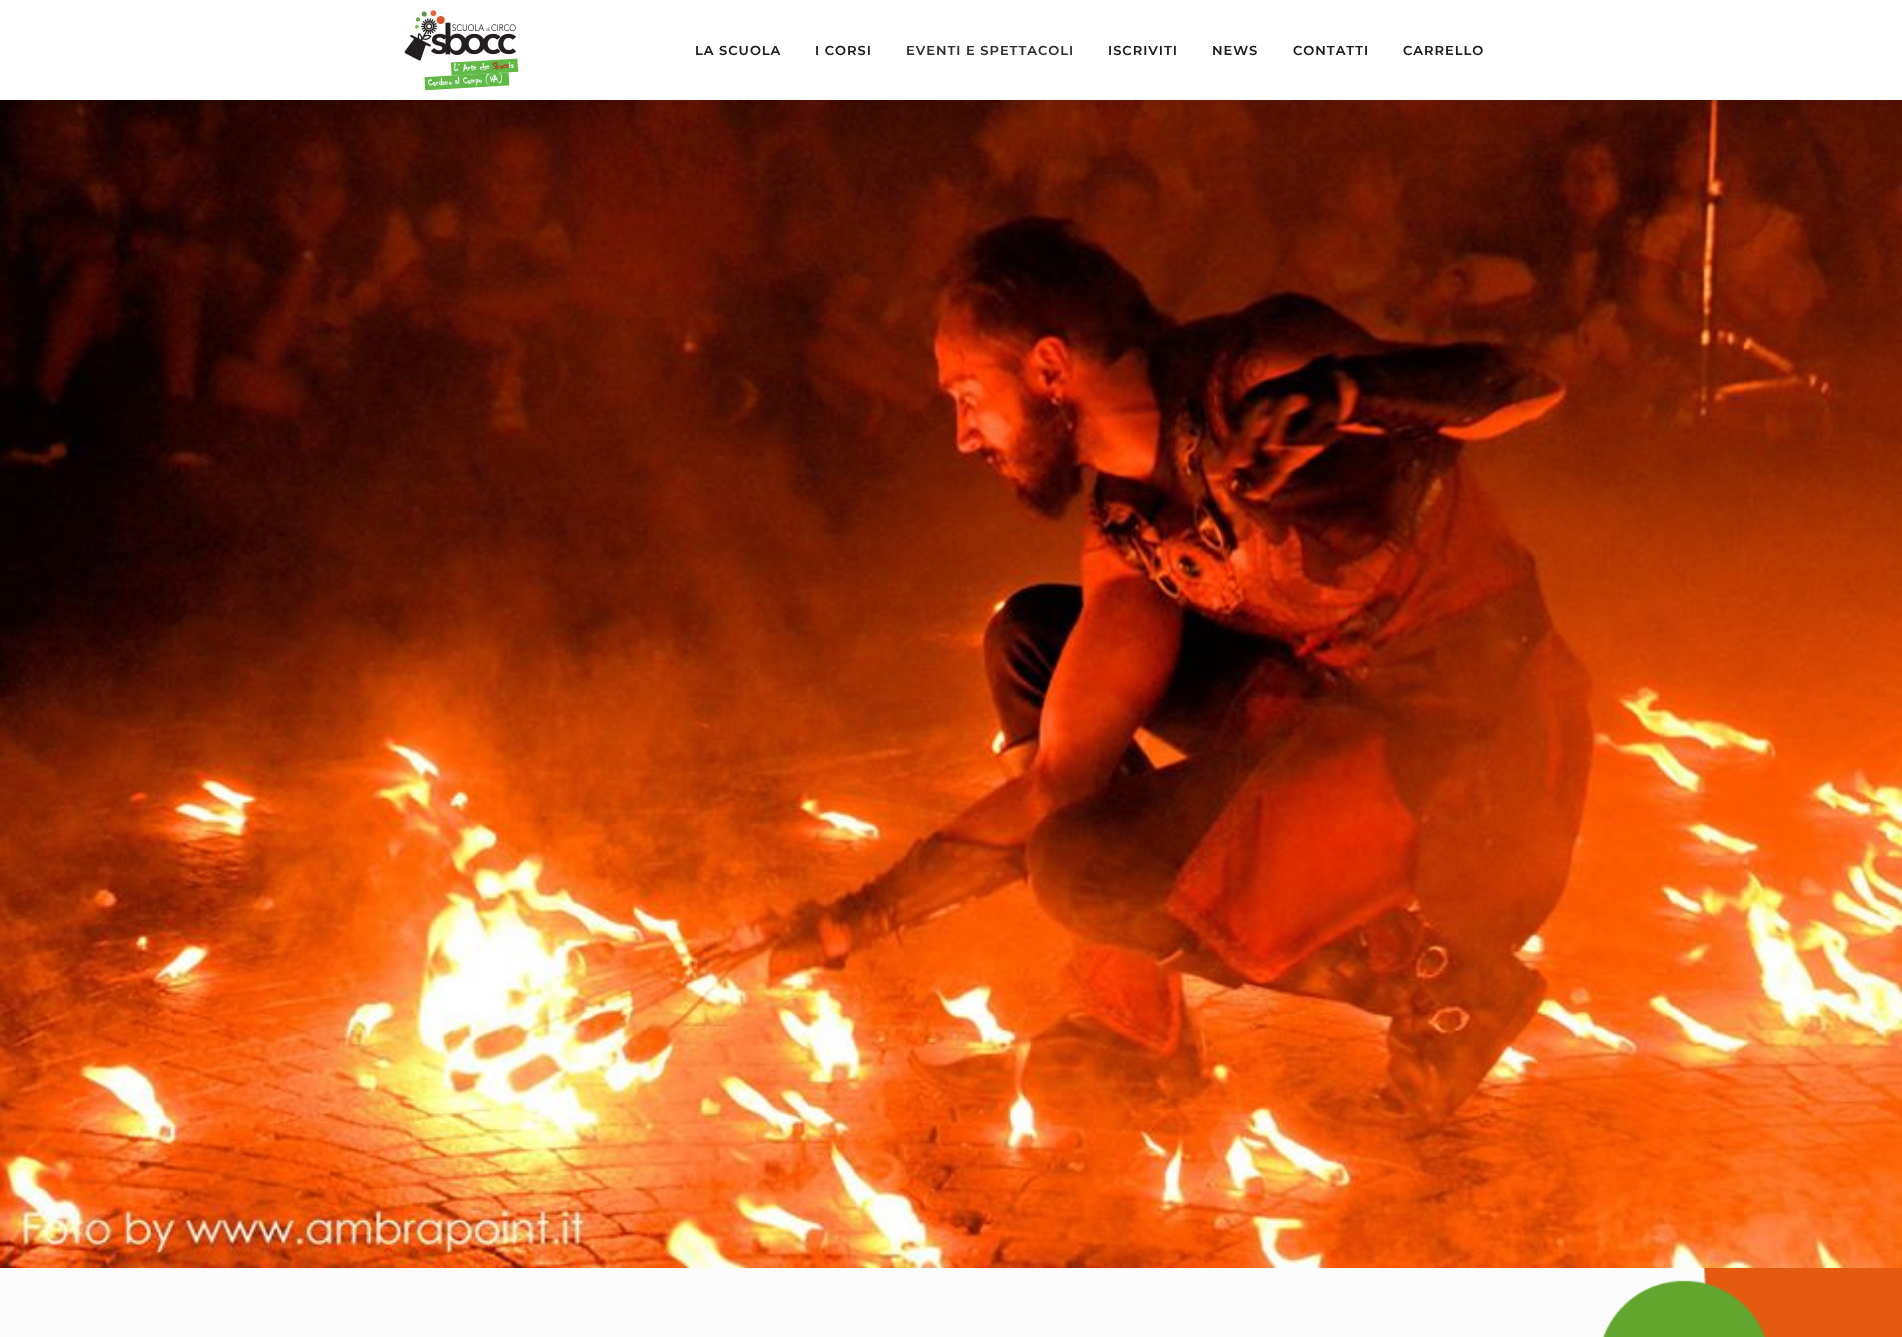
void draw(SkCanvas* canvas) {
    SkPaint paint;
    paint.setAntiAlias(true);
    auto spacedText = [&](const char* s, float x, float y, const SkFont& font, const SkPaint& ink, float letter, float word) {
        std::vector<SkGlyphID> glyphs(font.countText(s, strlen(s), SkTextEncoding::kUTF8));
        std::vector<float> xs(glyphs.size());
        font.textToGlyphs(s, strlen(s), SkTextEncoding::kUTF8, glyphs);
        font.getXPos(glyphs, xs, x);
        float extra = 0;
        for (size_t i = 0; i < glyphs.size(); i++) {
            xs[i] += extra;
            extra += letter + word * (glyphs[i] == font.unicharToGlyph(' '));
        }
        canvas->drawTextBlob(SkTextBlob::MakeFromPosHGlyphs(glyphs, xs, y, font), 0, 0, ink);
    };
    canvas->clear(0xFFFCFCFC);
    canvas->drawImageRect(SkImages::DeferredFromEncodedData(SkData::MakeFromFileName("img1.png")), SkRect::MakeXYWH(1602, 1268, 300, 69), SkSamplingOptions());
    paint.setColor(0xFFFFFFFF);
    canvas->drawRect(SkRect::MakeXYWH(0, 0, 1902, 100), paint);
    canvas->drawImageRect(SkImages::DeferredFromEncodedData(SkData::MakeFromFileName("img2.png")), SkRect::MakeXYWH(404, 10, 115, 81), SkSamplingOptions());
    SkFont font1(fontMgr->matchFamilyStyle("Montserrat", SkFontStyle(600, SkFontStyle::kNormal_Width, SkFontStyle::kUpright_Slant)), 13);
    font1.setSubpixel(true);
    paint.setColor(0xFF1E1E1E);
    spacedText("LA SCUOLA", 695, 55, font1, paint, 1, 0);
    spacedText("I CORSI", 815, 55, font1, paint, 1, 0);
    paint.setColor(0xFF303030);
    spacedText("EVENTI E SPETTACOLI", 906, 55, font1, paint, 1, 0);
    paint.setColor(0xFF1E1E1E);
    spacedText("ISCRIVITI", 1108, 55, font1, paint, 1, 0);
    spacedText("NEWS", 1212, 55, font1, paint, 1, 0);
    spacedText("CONTATTI", 1293, 55, font1, paint, 1, 0);
    spacedText("CARRELLO", 1403, 55, font1, paint, 1, 0);
    canvas->drawImageRect(SkImages::DeferredFromEncodedData(SkData::MakeFromFileName("img3.png")), SkRect::MakeXYWH(0, 100, 1902, 1168), SkSamplingOptions());
}
